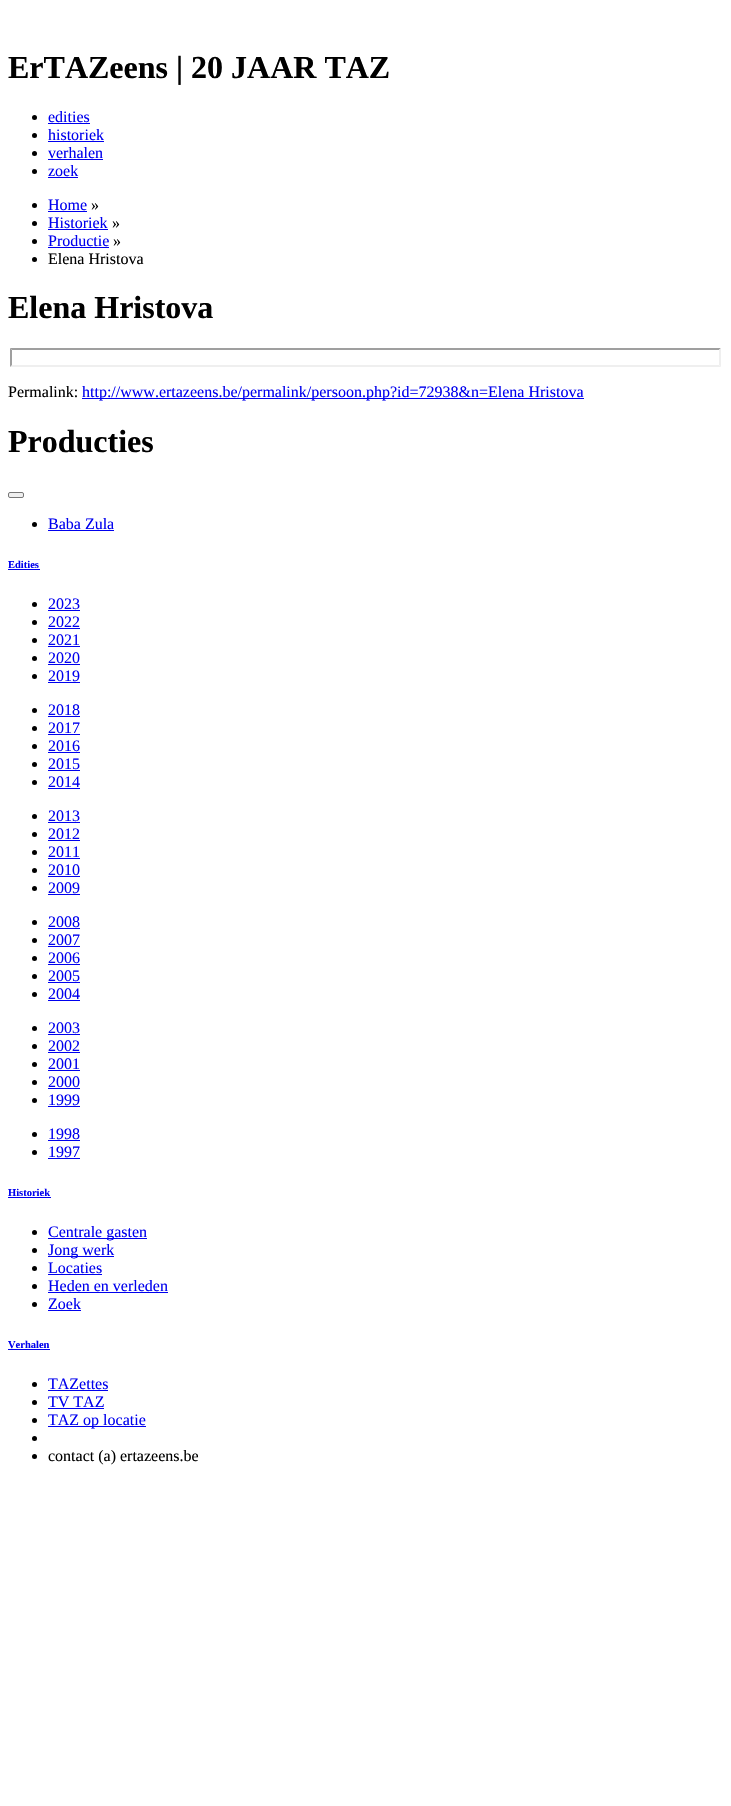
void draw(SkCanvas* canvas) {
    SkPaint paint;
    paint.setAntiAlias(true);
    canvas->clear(0xFFFFFFFF);
    SkFont font1(fontMgr->matchFamilyStyle("Liberation Serif", SkFontStyle::Bold()), 32);
    font1.setSubpixel(true);
    paint.setColor(0xFF000000);
    canvas->drawString("ErTAZeens | 20 JAAR TAZ", 8, 78, font1, paint);
    canvas->drawCircle(34.5f, 117.5f, 2.5f, paint);
    SkFont font2(fontMgr->matchFamilyStyle("Liberation Serif", SkFontStyle::Normal()), 16);
    font2.setSubpixel(true);
    paint.setColor(0xFF0000EE);
    canvas->drawString("edities", 48, 122, font2, paint);
    canvas->drawRect(SkRect::MakeXYWH(48, 123, 42, 1), paint);
    paint.setColor(0xFF000000);
    canvas->drawCircle(34.5f, 135.5f, 2.5f, paint);
    paint.setColor(0xFF0000EE);
    canvas->drawString("historiek", 48, 140, font2, paint);
    canvas->drawRect(SkRect::MakeXYWH(48, 141, 56, 1), paint);
    paint.setColor(0xFF000000);
    canvas->drawCircle(34.5f, 153.5f, 2.5f, paint);
    paint.setColor(0xFF0000EE);
    canvas->drawString("verhalen", 48, 158, font2, paint);
    canvas->drawRect(SkRect::MakeXYWH(48, 159, 55, 1), paint);
    paint.setColor(0xFF000000);
    canvas->drawCircle(34.5f, 171.5f, 2.5f, paint);
    paint.setColor(0xFF0000EE);
    canvas->drawString("zoek", 48, 176, font2, paint);
    canvas->drawRect(SkRect::MakeXYWH(48, 177, 30, 1), paint);
    paint.setColor(0xFF000000);
    canvas->drawCircle(34.5f, 205.5f, 2.5f, paint);
    paint.setColor(0xFF0000EE);
    canvas->drawString("Home", 48, 210, font2, paint);
    canvas->drawRect(SkRect::MakeXYWH(48, 211, 39, 1), paint);
    paint.setColor(0xFF000000);
    canvas->drawString("»", 91, 210, font2, paint);
    canvas->drawCircle(34.5f, 223.5f, 2.5f, paint);
    paint.setColor(0xFF0000EE);
    canvas->drawString("Historiek", 48, 228, font2, paint);
    canvas->drawRect(SkRect::MakeXYWH(48, 229, 60, 1), paint);
    paint.setColor(0xFF000000);
    canvas->drawString("»", 112, 228, font2, paint);
    canvas->drawCircle(34.5f, 241.5f, 2.5f, paint);
    paint.setColor(0xFF0000EE);
    canvas->drawString("Productie", 48, 246, font2, paint);
    canvas->drawRect(SkRect::MakeXYWH(48, 247, 61, 1), paint);
    paint.setColor(0xFF000000);
    canvas->drawString("»", 113, 246, font2, paint);
    canvas->drawCircle(34.5f, 259.5f, 2.5f, paint);
    canvas->drawString("Elena Hristova", 48, 264, font2, paint);
    canvas->drawString("Elena Hristova", 8, 318, font1, paint);
    paint.setColor(0xFF9F9F9F);
    canvas->drawPath(SkPathBuilder().moveTo(10, 348).lineTo(721, 348).lineTo(719, 350).lineTo(12, 350).close().detach(), paint);
    paint.setColor(0xFFEFEFEF);
    canvas->drawPath(SkPathBuilder().moveTo(721, 348).lineTo(721, 367).lineTo(719, 365).lineTo(719, 350).close().detach(), paint);
    canvas->drawPath(SkPathBuilder().moveTo(721, 367).lineTo(10, 367).lineTo(12, 365).lineTo(719, 365).close().detach(), paint);
    paint.setColor(0xFF9F9F9F);
    canvas->drawPath(SkPathBuilder().moveTo(10, 367).lineTo(10, 348).lineTo(12, 350).lineTo(12, 365).close().detach(), paint);
    paint.setColor(0xFF000000);
    canvas->drawString("Permalink:", 8, 397, font2, paint);
    paint.setColor(0xFF0000EE);
    canvas->drawRect(SkRect::MakeXYWH(82, 398, 502, 1), paint);
    canvas->drawString("http://www.ertazeens.be/permalink/persoon.php?id=72938&n=Elena Hristova", 82, 397, font2, paint);
    paint.setColor(0xFF000000);
    canvas->drawString("Producties", 8, 452, font1, paint);
    paint.setColor(0xFFEFEFEF);
    canvas->drawRoundRect(SkRect::MakeXYWH(8.5f, 492.5f, 15, 5), 1.5f, 1.5f, paint);
    paint.setStyle(SkPaint::kStroke_Style);
    paint.setStrokeWidth(1);
    paint.setColor(0xFF767676);
    canvas->drawRoundRect(SkRect::MakeXYWH(8.5f, 492.5f, 15, 5), 1.5f, 1.5f, paint);
    paint.setStyle(SkPaint::kFill_Style);
    paint.setColor(0xFF000000);
    canvas->drawCircle(34.5f, 524.5f, 2.5f, paint);
    paint.setColor(0xFF0000EE);
    canvas->drawString("Baba Zula", 48, 529, font2, paint);
    canvas->drawRect(SkRect::MakeXYWH(48, 530, 66, 1), paint);
    SkFont font3(fontMgr->matchFamilyStyle("Liberation Serif", SkFontStyle::Bold()), 10.5f);
    font3.setSubpixel(true);
    canvas->drawString("Edities", 8, 568, font3, paint);
    canvas->drawRect(SkRect::MakeXYWH(8, 569, 32, 1), paint);
    paint.setColor(0xFF000000);
    canvas->drawCircle(34.5f, 604.5f, 2.5f, paint);
    paint.setColor(0xFF0000EE);
    canvas->drawString("2023", 48, 609, font2, paint);
    canvas->drawRect(SkRect::MakeXYWH(48, 610, 32, 1), paint);
    paint.setColor(0xFF000000);
    canvas->drawCircle(34.5f, 622.5f, 2.5f, paint);
    paint.setColor(0xFF0000EE);
    canvas->drawString("2022", 48, 627, font2, paint);
    canvas->drawRect(SkRect::MakeXYWH(48, 628, 32, 1), paint);
    paint.setColor(0xFF000000);
    canvas->drawCircle(34.5f, 640.5f, 2.5f, paint);
    paint.setColor(0xFF0000EE);
    canvas->drawString("2021", 48, 645, font2, paint);
    canvas->drawRect(SkRect::MakeXYWH(48, 646, 32, 1), paint);
    paint.setColor(0xFF000000);
    canvas->drawCircle(34.5f, 658.5f, 2.5f, paint);
    paint.setColor(0xFF0000EE);
    canvas->drawString("2020", 48, 663, font2, paint);
    canvas->drawRect(SkRect::MakeXYWH(48, 664, 32, 1), paint);
    paint.setColor(0xFF000000);
    canvas->drawCircle(34.5f, 676.5f, 2.5f, paint);
    paint.setColor(0xFF0000EE);
    canvas->drawString("2019", 48, 681, font2, paint);
    canvas->drawRect(SkRect::MakeXYWH(48, 682, 32, 1), paint);
    paint.setColor(0xFF000000);
    canvas->drawCircle(34.5f, 710.5f, 2.5f, paint);
    paint.setColor(0xFF0000EE);
    canvas->drawString("2018", 48, 715, font2, paint);
    canvas->drawRect(SkRect::MakeXYWH(48, 716, 32, 1), paint);
    paint.setColor(0xFF000000);
    canvas->drawCircle(34.5f, 728.5f, 2.5f, paint);
    paint.setColor(0xFF0000EE);
    canvas->drawString("2017", 48, 733, font2, paint);
    canvas->drawRect(SkRect::MakeXYWH(48, 734, 32, 1), paint);
    paint.setColor(0xFF000000);
    canvas->drawCircle(34.5f, 746.5f, 2.5f, paint);
    paint.setColor(0xFF0000EE);
    canvas->drawString("2016", 48, 751, font2, paint);
    canvas->drawRect(SkRect::MakeXYWH(48, 752, 32, 1), paint);
    paint.setColor(0xFF000000);
    canvas->drawCircle(34.5f, 764.5f, 2.5f, paint);
    paint.setColor(0xFF0000EE);
    canvas->drawString("2015", 48, 769, font2, paint);
    canvas->drawRect(SkRect::MakeXYWH(48, 770, 32, 1), paint);
    paint.setColor(0xFF000000);
    canvas->drawCircle(34.5f, 782.5f, 2.5f, paint);
    paint.setColor(0xFF0000EE);
    canvas->drawString("2014", 48, 787, font2, paint);
    canvas->drawRect(SkRect::MakeXYWH(48, 788, 32, 1), paint);
    paint.setColor(0xFF000000);
    canvas->drawCircle(34.5f, 816.5f, 2.5f, paint);
    paint.setColor(0xFF0000EE);
    canvas->drawString("2013", 48, 821, font2, paint);
    canvas->drawRect(SkRect::MakeXYWH(48, 822, 32, 1), paint);
    paint.setColor(0xFF000000);
    canvas->drawCircle(34.5f, 834.5f, 2.5f, paint);
    paint.setColor(0xFF0000EE);
    canvas->drawString("2012", 48, 839, font2, paint);
    canvas->drawRect(SkRect::MakeXYWH(48, 840, 32, 1), paint);
    paint.setColor(0xFF000000);
    canvas->drawCircle(34.5f, 852.5f, 2.5f, paint);
    paint.setColor(0xFF0000EE);
    canvas->drawString("2011", 48, 857, font2, paint);
    canvas->drawRect(SkRect::MakeXYWH(48, 858, 32, 1), paint);
    paint.setColor(0xFF000000);
    canvas->drawCircle(34.5f, 870.5f, 2.5f, paint);
    paint.setColor(0xFF0000EE);
    canvas->drawString("2010", 48, 875, font2, paint);
    canvas->drawRect(SkRect::MakeXYWH(48, 876, 32, 1), paint);
    paint.setColor(0xFF000000);
    canvas->drawCircle(34.5f, 888.5f, 2.5f, paint);
    paint.setColor(0xFF0000EE);
    canvas->drawString("2009", 48, 893, font2, paint);
    canvas->drawRect(SkRect::MakeXYWH(48, 894, 32, 1), paint);
    paint.setColor(0xFF000000);
    canvas->drawCircle(34.5f, 922.5f, 2.5f, paint);
    paint.setColor(0xFF0000EE);
    canvas->drawString("2008", 48, 927, font2, paint);
    canvas->drawRect(SkRect::MakeXYWH(48, 928, 32, 1), paint);
    paint.setColor(0xFF000000);
    canvas->drawCircle(34.5f, 940.5f, 2.5f, paint);
    paint.setColor(0xFF0000EE);
    canvas->drawString("2007", 48, 945, font2, paint);
    canvas->drawRect(SkRect::MakeXYWH(48, 946, 32, 1), paint);
    paint.setColor(0xFF000000);
    canvas->drawCircle(34.5f, 958.5f, 2.5f, paint);
    paint.setColor(0xFF0000EE);
    canvas->drawString("2006", 48, 963, font2, paint);
    canvas->drawRect(SkRect::MakeXYWH(48, 964, 32, 1), paint);
    paint.setColor(0xFF000000);
    canvas->drawCircle(34.5f, 976.5f, 2.5f, paint);
    paint.setColor(0xFF0000EE);
    canvas->drawString("2005", 48, 981, font2, paint);
    canvas->drawRect(SkRect::MakeXYWH(48, 982, 32, 1), paint);
    paint.setColor(0xFF000000);
    canvas->drawCircle(34.5f, 994.5f, 2.5f, paint);
    paint.setColor(0xFF0000EE);
    canvas->drawString("2004", 48, 999, font2, paint);
    canvas->drawRect(SkRect::MakeXYWH(48, 1000, 32, 1), paint);
    paint.setColor(0xFF000000);
    canvas->drawCircle(34.5f, 1028.5f, 2.5f, paint);
    paint.setColor(0xFF0000EE);
    canvas->drawString("2003", 48, 1033, font2, paint);
    canvas->drawRect(SkRect::MakeXYWH(48, 1034, 32, 1), paint);
    paint.setColor(0xFF000000);
    canvas->drawCircle(34.5f, 1046.5f, 2.5f, paint);
    paint.setColor(0xFF0000EE);
    canvas->drawString("2002", 48, 1051, font2, paint);
    canvas->drawRect(SkRect::MakeXYWH(48, 1052, 32, 1), paint);
    paint.setColor(0xFF000000);
    canvas->drawCircle(34.5f, 1064.5f, 2.5f, paint);
    paint.setColor(0xFF0000EE);
    canvas->drawString("2001", 48, 1069, font2, paint);
    canvas->drawRect(SkRect::MakeXYWH(48, 1070, 32, 1), paint);
    paint.setColor(0xFF000000);
    canvas->drawCircle(34.5f, 1082.5f, 2.5f, paint);
    paint.setColor(0xFF0000EE);
    canvas->drawString("2000", 48, 1087, font2, paint);
    canvas->drawRect(SkRect::MakeXYWH(48, 1088, 32, 1), paint);
    paint.setColor(0xFF000000);
    canvas->drawCircle(34.5f, 1100.5f, 2.5f, paint);
    paint.setColor(0xFF0000EE);
    canvas->drawString("1999", 48, 1105, font2, paint);
    canvas->drawRect(SkRect::MakeXYWH(48, 1106, 32, 1), paint);
    paint.setColor(0xFF000000);
    canvas->drawCircle(34.5f, 1134.5f, 2.5f, paint);
    paint.setColor(0xFF0000EE);
    canvas->drawString("1998", 48, 1139, font2, paint);
    canvas->drawRect(SkRect::MakeXYWH(48, 1140, 32, 1), paint);
    paint.setColor(0xFF000000);
    canvas->drawCircle(34.5f, 1152.5f, 2.5f, paint);
    paint.setColor(0xFF0000EE);
    canvas->drawString("1997", 48, 1157, font2, paint);
    canvas->drawRect(SkRect::MakeXYWH(48, 1158, 32, 1), paint);
    canvas->drawString("Historiek", 8, 1196, font3, paint);
    canvas->drawRect(SkRect::MakeXYWH(8, 1197, 43, 1), paint);
    paint.setColor(0xFF000000);
    canvas->drawCircle(34.5f, 1232.5f, 2.5f, paint);
    paint.setColor(0xFF0000EE);
    canvas->drawRect(SkRect::MakeXYWH(48, 1238, 99, 1), paint);
    canvas->drawString("Centrale gasten", 48, 1237, font2, paint);
    paint.setColor(0xFF000000);
    canvas->drawCircle(34.5f, 1250.5f, 2.5f, paint);
    paint.setColor(0xFF0000EE);
    canvas->drawRect(SkRect::MakeXYWH(48, 1256, 66, 1), paint);
    canvas->drawString("Jong werk", 48, 1255, font2, paint);
    paint.setColor(0xFF000000);
    canvas->drawCircle(34.5f, 1268.5f, 2.5f, paint);
    paint.setColor(0xFF0000EE);
    canvas->drawString("Locaties", 48, 1273, font2, paint);
    canvas->drawRect(SkRect::MakeXYWH(48, 1274, 54, 1), paint);
    paint.setColor(0xFF000000);
    canvas->drawCircle(34.5f, 1286.5f, 2.5f, paint);
    paint.setColor(0xFF0000EE);
    canvas->drawString("Heden en verleden", 48, 1291, font2, paint);
    canvas->drawRect(SkRect::MakeXYWH(48, 1292, 120, 1), paint);
    paint.setColor(0xFF000000);
    canvas->drawCircle(34.5f, 1304.5f, 2.5f, paint);
    paint.setColor(0xFF0000EE);
    canvas->drawString("Zoek", 48, 1309, font2, paint);
    canvas->drawRect(SkRect::MakeXYWH(48, 1310, 33, 1), paint);
    canvas->drawString("Verhalen", 8, 1348, font3, paint);
    canvas->drawRect(SkRect::MakeXYWH(8, 1349, 42, 1), paint);
    paint.setColor(0xFF000000);
    canvas->drawCircle(34.5f, 1384.5f, 2.5f, paint);
    paint.setColor(0xFF0000EE);
    canvas->drawString("TAZettes", 48, 1389, font2, paint);
    canvas->drawRect(SkRect::MakeXYWH(48, 1390, 60, 1), paint);
    paint.setColor(0xFF000000);
    canvas->drawCircle(34.5f, 1402.5f, 2.5f, paint);
    paint.setColor(0xFF0000EE);
    canvas->drawString("TV TAZ", 48, 1407, font2, paint);
    canvas->drawRect(SkRect::MakeXYWH(48, 1408, 56, 1), paint);
    paint.setColor(0xFF000000);
    canvas->drawCircle(34.5f, 1420.5f, 2.5f, paint);
    paint.setColor(0xFF0000EE);
    canvas->drawRect(SkRect::MakeXYWH(48, 1426, 98, 1), paint);
    canvas->drawString("TAZ op locatie", 48, 1425, font2, paint);
    paint.setColor(0xFF000000);
    canvas->drawCircle(34.5f, 1438.5f, 2.5f, paint);
    canvas->drawCircle(34.5f, 1456.5f, 2.5f, paint);
    canvas->drawString("contact (a) ertazeens.be", 48, 1461, font2, paint);
}
